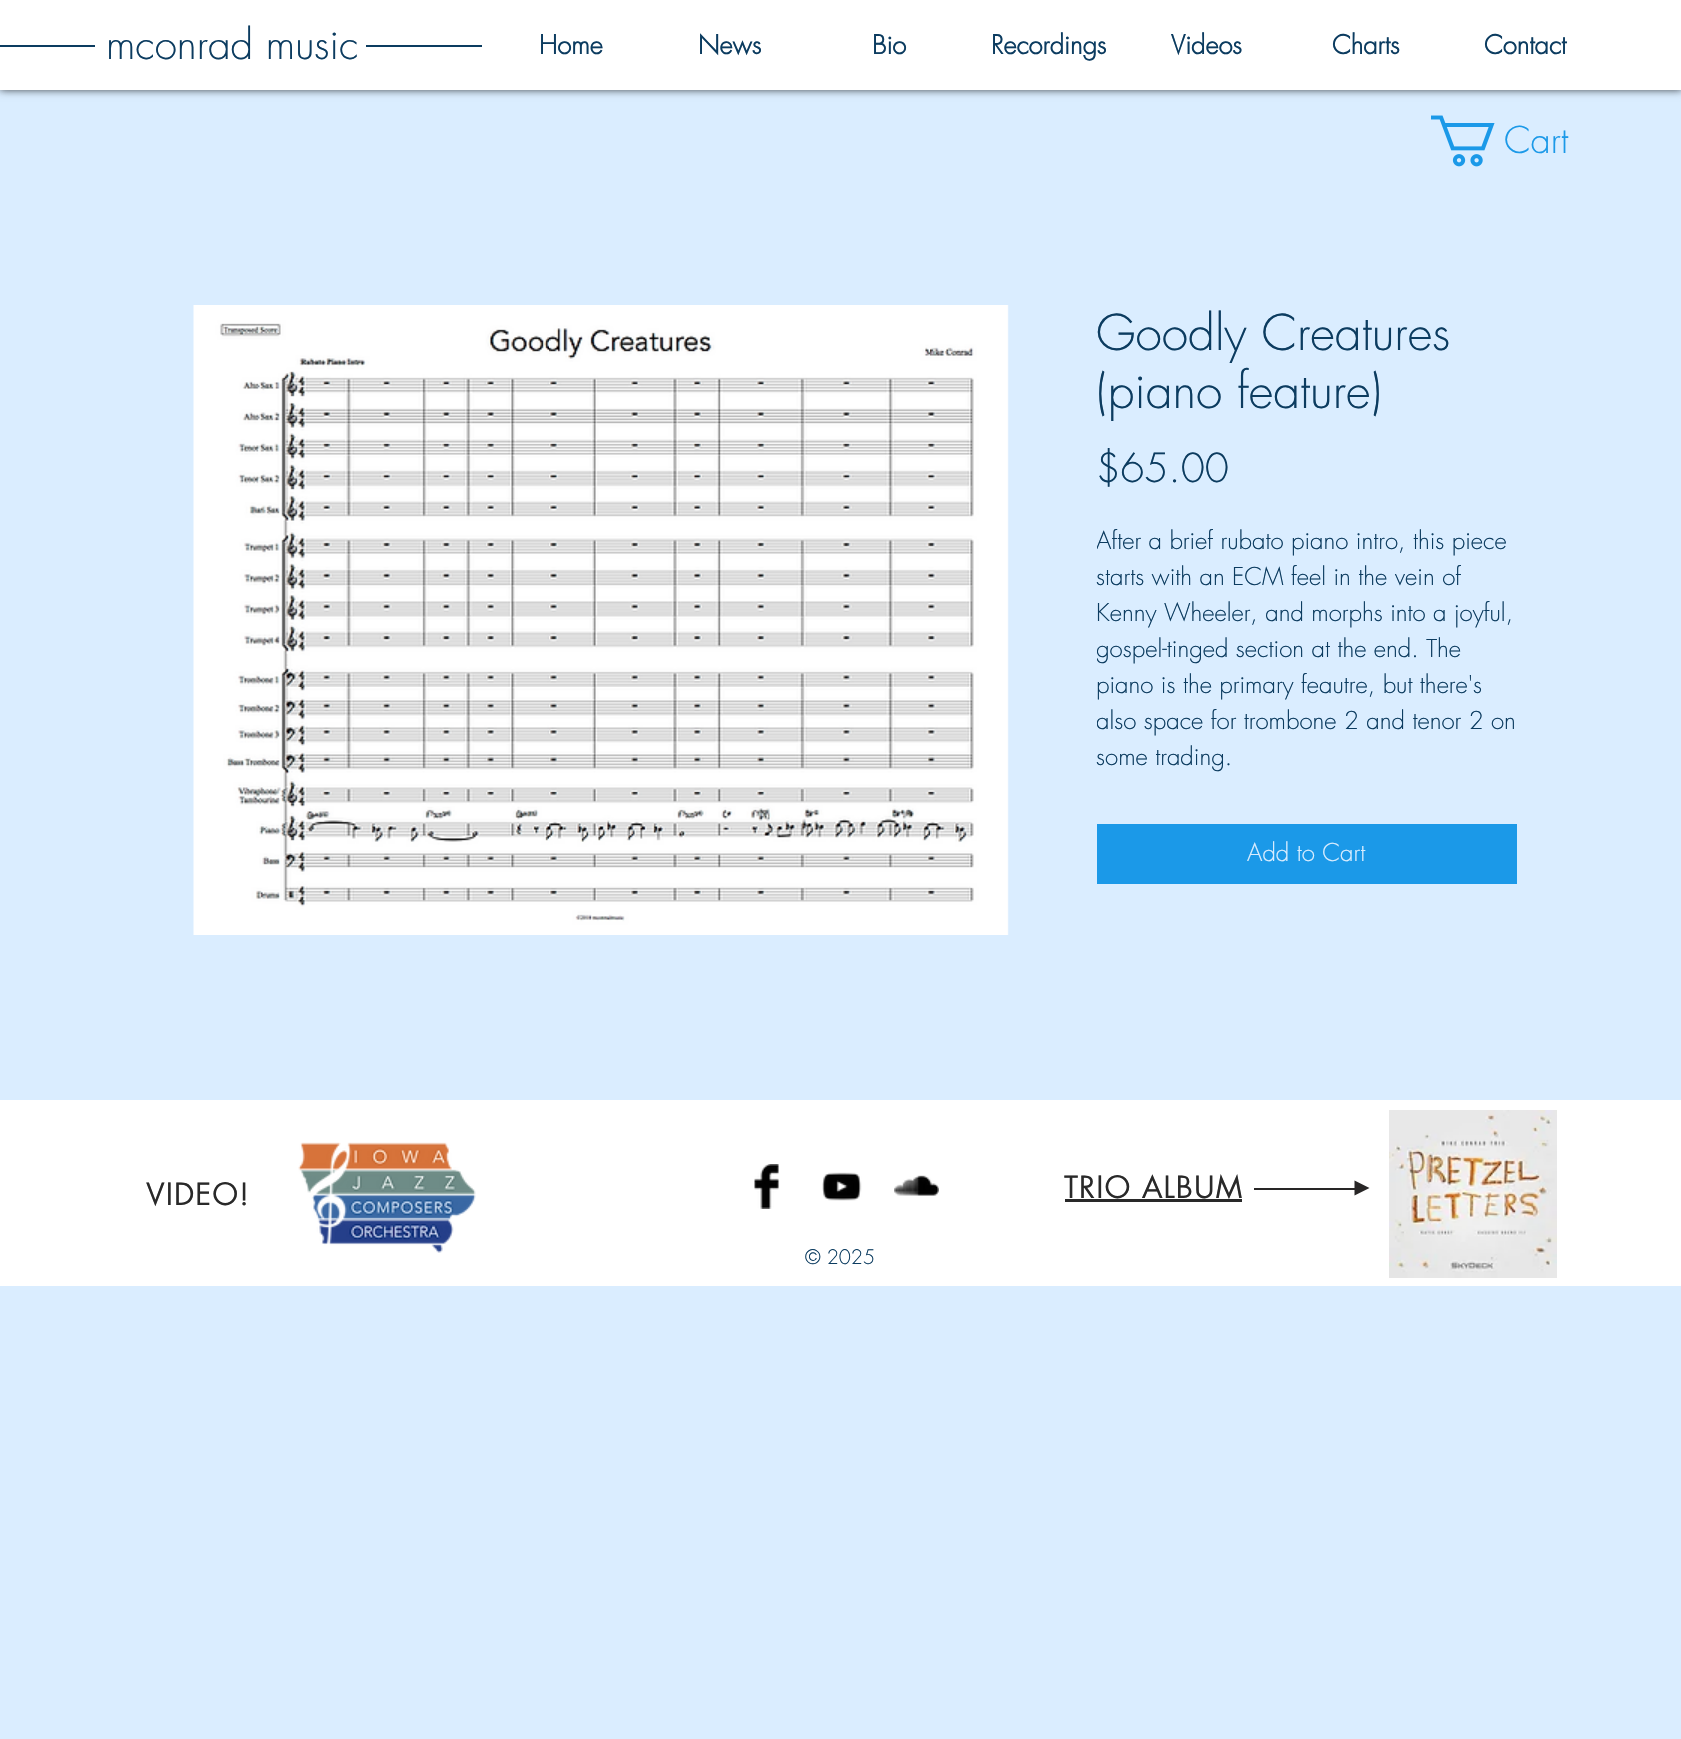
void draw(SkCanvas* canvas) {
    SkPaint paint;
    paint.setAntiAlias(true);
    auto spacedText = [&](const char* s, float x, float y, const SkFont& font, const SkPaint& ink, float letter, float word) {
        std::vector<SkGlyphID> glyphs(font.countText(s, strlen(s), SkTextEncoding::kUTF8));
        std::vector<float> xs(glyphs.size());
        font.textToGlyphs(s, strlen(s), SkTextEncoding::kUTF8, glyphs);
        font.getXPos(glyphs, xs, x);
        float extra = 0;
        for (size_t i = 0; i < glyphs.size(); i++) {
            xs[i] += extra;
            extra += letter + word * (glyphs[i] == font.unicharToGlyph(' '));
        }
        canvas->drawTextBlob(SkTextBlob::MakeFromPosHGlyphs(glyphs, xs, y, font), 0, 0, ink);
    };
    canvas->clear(0xFFDAEDFF);
    paint.setColor(0xB3000000);
    paint.setMaskFilter(SkMaskFilter::MakeBlur(kNormal_SkBlurStyle, 4));
    canvas->drawRect(SkRect::MakeXYWH(0, 0, 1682, 90), paint);
    paint.setMaskFilter(nullptr);
    paint.setColor(0xFFFFFFFF);
    canvas->drawRect(SkRect::MakeXYWH(0, 0, 1681, 90), paint);
    paint.setColor(0xFF0C3C60);
    canvas->drawRect(SkRect::MakeXYWH(0, 45, 95, 2), paint);
    SkFont font1(fontMgr->matchFamilyStyle("futura", SkFontStyle(300, SkFontStyle::kNormal_Width, SkFontStyle::kUpright_Slant)), 40.5f);
    font1.setSubpixel(true);
    canvas->drawString("mconrad music", 106, 59, font1, paint);
    canvas->drawRect(SkRect::MakeXYWH(366, 45, 116, 2), paint);
    SkFont font2(fontMgr->matchFamilyStyle("futura", SkFontStyle::Bold()), 25.5f);
    font2.setSubpixel(true);
    canvas->drawString("Home", 539, 54, font2, paint);
    canvas->drawString("News", 698, 54, font2, paint);
    canvas->drawString("Bio", 872, 54, font2, paint);
    canvas->drawString("Recordings", 991, 54, font2, paint);
    canvas->drawString("Videos", 1171, 54, font2, paint);
    canvas->drawString("Charts", 1332, 54, font2, paint);
    canvas->drawString("Contact", 1484, 54, font2, paint);
    canvas->drawImageRect(SkImages::DeferredFromEncodedData(SkData::MakeFromFileName("img1.png")), SkRect::MakeXYWH(1431, 115, 64, 52), SkSamplingOptions());
    SkFont font3(fontMgr->matchFamilyStyle("futura", SkFontStyle(300, SkFontStyle::kNormal_Width, SkFontStyle::kUpright_Slant)), 36);
    font3.setSubpixel(true);
    paint.setColor(0xFF1B99E8);
    canvas->drawString("Cart", 1504, 153, font3, paint);
    canvas->drawImageRect(SkImages::DeferredFromEncodedData(SkData::MakeFromFileName("img2.png")), SkRect::MakeXYWH(193, 305, 816, 630), SkSamplingOptions());
    SkFont font4(fontMgr->matchFamilyStyle("futura", SkFontStyle(300, SkFontStyle::kNormal_Width, SkFontStyle::kUpright_Slant)), 48);
    font4.setSubpixel(true);
    paint.setColor(0xFF0C3C60);
    canvas->drawString("Goodly Creatures", 1096, 350, font4, paint);
    canvas->drawString("(piano feature)", 1096, 408, font4, paint);
    SkFont font5(fontMgr->matchFamilyStyle("futura", SkFontStyle(300, SkFontStyle::kNormal_Width, SkFontStyle::kUpright_Slant)), 39);
    font5.setSubpixel(true);
    canvas->drawString("$65.00", 1096, 482, font5, paint);
    canvas->save();
    canvas->clipRect(SkRect::MakeXYWH(1097, 524, 420, 252));
    SkFont font6(fontMgr->matchFamilyStyle("futura", SkFontStyle(300, SkFontStyle::kNormal_Width, SkFontStyle::kUpright_Slant)), 24);
    font6.setSubpixel(true);
    canvas->drawString("After a brief rubato piano intro, this piece", 1096, 549, font6, paint);
    canvas->restore();
    canvas->drawString("starts with an ECM feel in the vein of", 1096, 585, font6, paint);
    canvas->drawString("Kenny Wheeler, and morphs into a joyful,", 1096, 621, font6, paint);
    canvas->save();
    canvas->clipRect(SkRect::MakeXYWH(1097, 524, 420, 252));
    canvas->drawString("gospel-tinged section at the end. The", 1096, 657, font6, paint);
    canvas->restore();
    canvas->drawString("piano is the primary feautre, but there's", 1096, 693, font6, paint);
    canvas->save();
    canvas->clipRect(SkRect::MakeXYWH(1097, 524, 420, 252));
    canvas->drawString("also space for trombone 2 and tenor 2 on", 1096, 729, font6, paint);
    canvas->restore();
    canvas->drawString("some trading.", 1096, 765, font6, paint);
    paint.setColor(0xFF1B99E8);
    canvas->drawRect(SkRect::MakeXYWH(1097, 824, 420, 60), paint);
    paint.setColor(0xFFDAEDFF);
    canvas->drawString("Add to Cart", 1247, 861, font6, paint);
    paint.setColor(0xFFFFFFFF);
    canvas->drawRect(SkRect::MakeXYWH(0, 1100, 1681, 186), paint);
    SkFont font7(fontMgr->matchFamilyStyle("futura", SkFontStyle::Normal()), 30);
    font7.setSubpixel(true);
    paint.setColor(0xFF292929);
    spacedText("VIDEO!", 146, 1205, font7, paint, 1, 0);
    canvas->drawImageRect(SkImages::DeferredFromEncodedData(SkData::MakeFromFileName("img3.png")), SkRect::MakeXYWH(298, 1142, 178, 111), SkSamplingOptions());
    canvas->drawImageRect(SkImages::DeferredFromEncodedData(SkData::MakeFromFileName("img4.png")), SkRect::MakeXYWH(754, 1164, 25, 45), SkSamplingOptions());
    canvas->drawImageRect(SkImages::DeferredFromEncodedData(SkData::MakeFromFileName("img5.png")), SkRect::MakeXYWH(822, 1172, 40, 29), SkSamplingOptions());
    canvas->drawImageRect(SkImages::DeferredFromEncodedData(SkData::MakeFromFileName("img6.png")), SkRect::MakeXYWH(894, 1175, 45, 21), SkSamplingOptions());
    spacedText("TRIO ALBUM", 1064, 1198, font7, paint, 1, 0);
    canvas->drawRect(SkRect::MakeXYWH(1065, 1199, 177, 3), paint);
    paint.setColor(0xFF282626);
    canvas->drawRect(SkRect::MakeXYWH(1254, 1188, 108, 2), paint);
    canvas->drawPath(SkPathBuilder().moveTo(1354.5f, 1195.5f).lineTo(1354.5f, 1180.5f).lineTo(1369.5f, 1188).close().detach(), paint);
    canvas->drawImageRect(SkImages::DeferredFromEncodedData(SkData::MakeFromFileName("img7.png")), SkRect::MakeXYWH(1389, 1110, 168, 168), SkSamplingOptions());
    SkFont font8(fontMgr->matchFamilyStyle("futura", SkFontStyle(300, SkFontStyle::kNormal_Width, SkFontStyle::kUpright_Slant)), 19.5f);
    font8.setSubpixel(true);
    paint.setColor(0xFF0C3C60);
    canvas->drawString("© 2025", 805, 1264, font8, paint);
}
